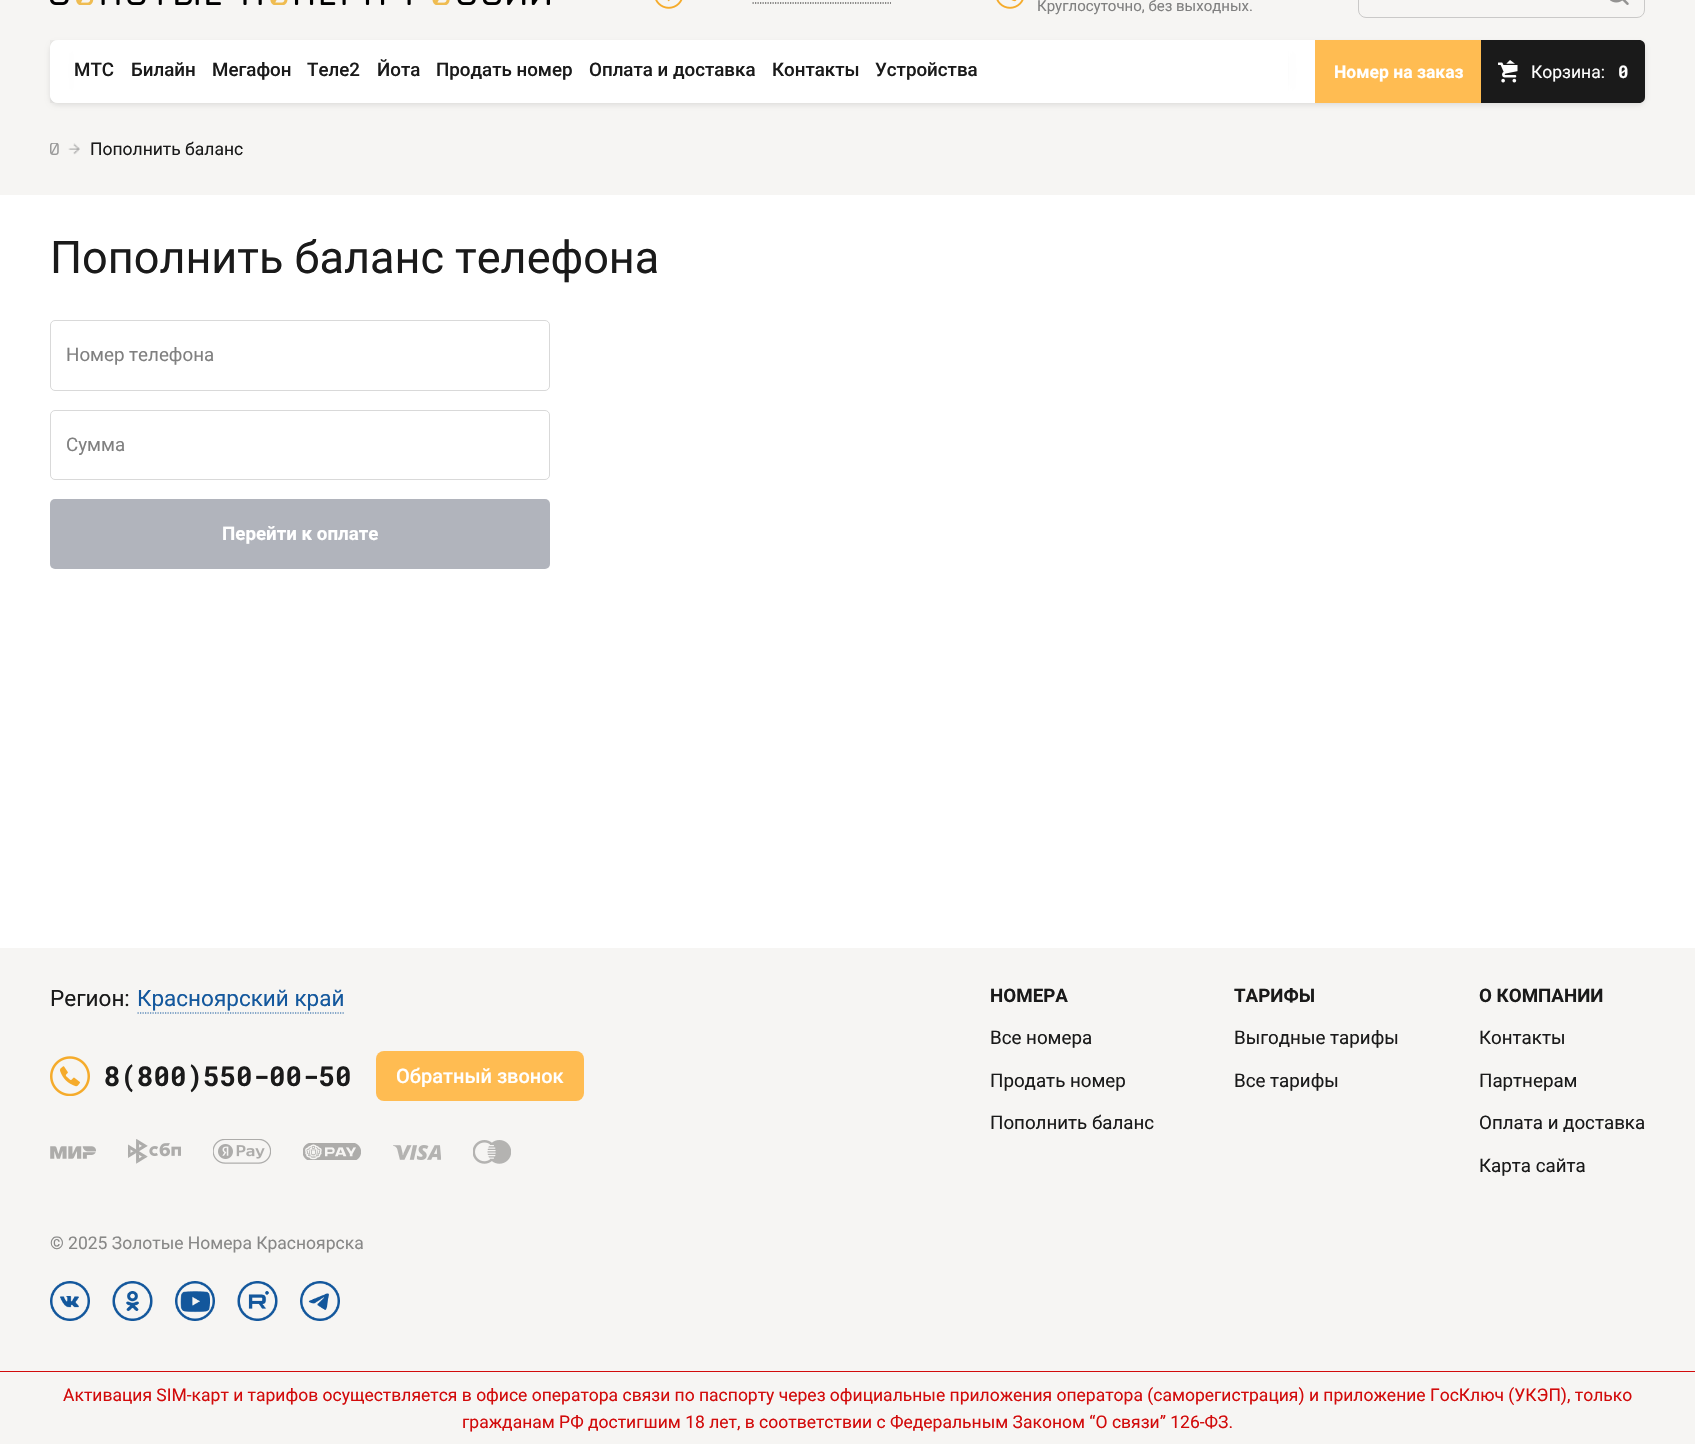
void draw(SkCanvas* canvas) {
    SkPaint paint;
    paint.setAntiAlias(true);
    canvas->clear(0xFFFFFFFF);
    paint.setColor(0xFFF6F5F3);
    canvas->drawRect(SkRect::MakeXYWH(0, 0, 1695, 195), paint);
    canvas->drawImageRect(SkImages::DeferredFromEncodedData(SkData::MakeFromFileName("img1.png")), SkRect::MakeXYWH(50, 0, 500, 5), SkSamplingOptions());
    canvas->drawImageRect(SkImages::DeferredFromEncodedData(SkData::MakeFromFileName("img2.png")), SkRect::MakeXYWH(655, 0, 28, 9), SkSamplingOptions());
    paint.setStyle(SkPaint::kStroke_Style);
    paint.setStrokeWidth(1.2f);
    paint.setColor(0xFF1A1A1A);
    paint.setPathEffect(SkDashPathEffect::Make({{1.25f, 1.25f}}, 0));
    canvas->drawPath(SkPathBuilder().moveTo(752.5f, 3).lineTo(891, 3).detach(), paint);
    paint.setPathEffect(nullptr);
    canvas->drawImageRect(SkImages::DeferredFromEncodedData(SkData::MakeFromFileName("img3.png")), SkRect::MakeXYWH(996, 0, 28, 9), SkSamplingOptions());
    SkFont font1(fontMgr->matchFamilyStyle("Roboto", SkFontStyle::Normal()), 15);
    font1.setSubpixel(true);
    paint.setStyle(SkPaint::kFill_Style);
    paint.setColor(0xFF808080);
    canvas->drawString("Круглосуточно, без выходных.", 1037, 11, font1, paint);
    paint.setStyle(SkPaint::kStroke_Style);
    paint.setStrokeWidth(1);
    paint.setColor(0xFFCAC9C8);
    canvas->drawRoundRect(SkRect::MakeXYWH(1358.5f, -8.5f, 286, 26), 7.5f, 7.5f, paint);
    canvas->drawImageRect(SkImages::DeferredFromEncodedData(SkData::MakeFromFileName("img4.png")), SkRect::MakeXYWH(1610, 0, 19, 5), SkSamplingOptions());
    paint.setStyle(SkPaint::kFill_Style);
    paint.setColor(0x1A000000);
    paint.setMaskFilter(SkMaskFilter::MakeBlur(kNormal_SkBlurStyle, 2.5f));
    canvas->drawRoundRect(SkRect::MakeXYWH(50, 43, 1595, 62), 8, 8, paint);
    paint.setMaskFilter(nullptr);
    paint.setColor(0xFFFFFFFF);
    canvas->drawPath(SkPathBuilder().moveTo(58, 40).lineTo(1315, 40).lineTo(1315, 103).lineTo(58, 103).cubicTo(53.5f, 103, 50, 99.5f, 50, 95).lineTo(50, 48).cubicTo(50, 43.5f, 53.5f, 40, 58, 40).close().detach(), paint);
    {
        const SkColor colors[] = {0xFFE6E6E6, 0xFFFFFFFF};
        const float stops[] = {0, 1};
        SkMatrix m = SkMatrix::Translate(1315, 71).preScale(30, 47);
        paint.setShader(SkGradientShader::MakeRadial({0, 0}, 1, colors, stops, 2, SkTileMode::kClamp, 0, &m));
        paint.setAlpha(255);
    }
    canvas->drawRect(SkRect::MakeXYWH(1288, 40, 12, 63), paint);
    {
        const SkColor colors[] = {0x1A000000, 0x00000000};
        const float stops[] = {0, 1};
        SkMatrix m = SkMatrix::Translate(50, 71).preScale(30, 47);
        paint.setShader(SkGradientShader::MakeRadial({0, 0}, 1, colors, stops, 2, SkTileMode::kClamp, 0, &m));
        paint.setAlpha(255);
    }
    canvas->drawRect(SkRect::MakeXYWH(50, 40, 24, 63), paint);
    {
        const SkColor colors[] = {0xFFFFFFFF, 0x00FFFFFF};
        const float stops[] = {0.3f, 1};
        const SkPoint ends[] = {{1315, 71}, {1265, 71}};
        paint.setShader(SkGradientShader::MakeLinear(ends, colors, stops, 2, SkTileMode::kClamp));
        paint.setAlpha(255);
    }
    canvas->drawRect(SkRect::MakeXYWH(1289, 40, 11, 63), paint);
    {
        const SkColor colors[] = {0xFFFFFFFF, 0x00FFFFFF};
        const float stops[] = {0.3f, 1};
        const SkPoint ends[] = {{50, 71}, {100, 71}};
        paint.setShader(SkGradientShader::MakeLinear(ends, colors, stops, 2, SkTileMode::kClamp));
        paint.setAlpha(255);
    }
    canvas->drawPath(SkPathBuilder().moveTo(58, 40).lineTo(100, 40).lineTo(100, 103).lineTo(58, 103).cubicTo(53.5f, 103, 50, 99.5f, 50, 95).lineTo(50, 48).cubicTo(50, 43.5f, 53.5f, 40, 58, 40).close().detach(), paint);
    SkFont font2(fontMgr->matchFamilyStyle("Roboto", SkFontStyle(500, SkFontStyle::kNormal_Width, SkFontStyle::kUpright_Slant)), 18.75f);
    font2.setSubpixel(true);
    paint.setShader(nullptr);
    paint.setColor(0xFF1A1A1A);
    canvas->drawString("МТС", 74, 76, font2, paint);
    canvas->drawString("Билайн", 131, 76, font2, paint);
    canvas->drawString("Мегафон", 212, 76, font2, paint);
    canvas->drawString("Теле2", 307, 76, font2, paint);
    canvas->drawString("Йота", 377, 76, font2, paint);
    canvas->drawString("Продать номер", 436, 76, font2, paint);
    canvas->drawString("Оплата и доставка", 589, 76, font2, paint);
    canvas->drawString("Контакты", 772, 76, font2, paint);
    canvas->drawString("Устройства", 875, 76, font2, paint);
    paint.setColor(0xFFFFBC52);
    canvas->drawRect(SkRect::MakeXYWH(1315, 40, 166, 63), paint);
    SkFont font3(fontMgr->matchFamilyStyle("Roboto", SkFontStyle::Bold()), 17.5f);
    font3.setSubpixel(true);
    paint.setColor(0xFFFFFFFF);
    canvas->drawString("Номер на заказ", 1334, 78, font3, paint);
    paint.setColor(0xFF1A1A1A);
    canvas->drawPath(SkPathBuilder().moveTo(1481, 40).lineTo(1639, 40).cubicTo(1642.5f, 40, 1645, 42.5f, 1645, 46).lineTo(1645, 97).cubicTo(1645, 100.5f, 1642.5f, 103, 1639, 103).lineTo(1481, 103).close().detach(), paint);
    canvas->drawImageRect(SkImages::DeferredFromEncodedData(SkData::MakeFromFileName("img5.png")), SkRect::MakeXYWH(1498, 60, 20, 23), SkSamplingOptions());
    SkFont font4(fontMgr->matchFamilyStyle("Roboto", SkFontStyle::Normal()), 17.5f);
    font4.setSubpixel(true);
    paint.setColor(0xFFFFFFFF);
    canvas->drawString("Корзина:", 1531, 78, font4, paint);
    SkFont font5(fontMgr->matchFamilyStyle("Roboto Mono", SkFontStyle::Bold()), 17.5f);
    font5.setSubpixel(true);
    canvas->drawString("0", 1618, 78, font5, paint);
    canvas->drawImageRect(SkImages::DeferredFromEncodedData(SkData::MakeFromFileName("img6.png")), SkRect::MakeXYWH(50, 143, 9, 12), SkSamplingOptions());
    canvas->drawImageRect(SkImages::DeferredFromEncodedData(SkData::MakeFromFileName("img7.png")), SkRect::MakeXYWH(68, 143, 12, 12), SkSamplingOptions());
    paint.setColor(0xFF1A1A1A);
    canvas->drawString("Пополнить баланс", 90, 155, font4, paint);
    SkFont font6(fontMgr->matchFamilyStyle("Roboto", SkFontStyle::Normal()), 45);
    font6.setSubpixel(true);
    canvas->drawString("Пополнить баланс телефона", 50, 273, font6, paint);
    paint.setStyle(SkPaint::kStroke_Style);
    paint.setColor(0xFFD9D9D9);
    canvas->drawRoundRect(SkRect::MakeXYWH(50.5f, 320.5f, 499, 70), 4.5f, 4.5f, paint);
    SkFont font7(fontMgr->matchFamilyStyle("Roboto", SkFontStyle::Normal()), 18.75f);
    font7.setSubpixel(true);
    paint.setStyle(SkPaint::kFill_Style);
    paint.setColor(0xFF808080);
    canvas->drawString("Номер телефона", 66, 361, font7, paint);
    paint.setStyle(SkPaint::kStroke_Style);
    paint.setColor(0xFFD9D9D9);
    canvas->drawRoundRect(SkRect::MakeXYWH(50.5f, 410.5f, 499, 69), 4.5f, 4.5f, paint);
    paint.setStyle(SkPaint::kFill_Style);
    paint.setColor(0xFF808080);
    canvas->drawString("Сумма", 66, 451, font7, paint);
    paint.setColor(0xFFB1B4BC);
    canvas->drawRoundRect(SkRect::MakeXYWH(50, 499, 500, 70), 5, 5, paint);
    SkFont font8(fontMgr->matchFamilyStyle("Roboto", SkFontStyle::Bold()), 18.75f);
    font8.setSubpixel(true);
    paint.setColor(0xFFFFFFFF);
    canvas->drawString("Перейти к оплате", 222, 540, font8, paint);
    paint.setColor(0xFFF6F5F3);
    canvas->drawRect(SkRect::MakeXYWH(0, 948, 1695, 423), paint);
    SkFont font9(fontMgr->matchFamilyStyle("Roboto", SkFontStyle::Normal()), 22.5f);
    font9.setSubpixel(true);
    paint.setColor(0xFF1A1A1A);
    canvas->drawString("Регион:", 50, 1006, font9, paint);
    paint.setStyle(SkPaint::kStroke_Style);
    paint.setStrokeWidth(1.2f);
    paint.setColor(0xFF14589D);
    paint.setPathEffect(SkDashPathEffect::Make({{1.25f, 1.25f}}, 0));
    canvas->drawPath(SkPathBuilder().moveTo(137.5f, 1013).lineTo(345, 1013).detach(), paint);
    paint.setPathEffect(nullptr);
    paint.setStyle(SkPaint::kFill_Style);
    canvas->drawString("Красноярский край", 137, 1006, font9, paint);
    canvas->drawImageRect(SkImages::DeferredFromEncodedData(SkData::MakeFromFileName("img8.png")), SkRect::MakeXYWH(50, 1056, 40, 40), SkSamplingOptions());
    SkFont font10(fontMgr->matchFamilyStyle("Roboto Mono", SkFontStyle::Bold()), 27.5f);
    font10.setSubpixel(true);
    paint.setColor(0xFF1A1A1A);
    canvas->drawString("8(800)550-00-50", 104, 1086, font10, paint);
    paint.setColor(0xFFFFBC52);
    canvas->drawRoundRect(SkRect::MakeXYWH(376, 1051, 208, 50), 8, 8, paint);
    SkFont font11(fontMgr->matchFamilyStyle("Roboto", SkFontStyle(500, SkFontStyle::kNormal_Width, SkFontStyle::kUpright_Slant)), 20);
    font11.setSubpixel(true);
    paint.setColor(0xFFFFFFFF);
    canvas->drawString("Обратный звонок", 396, 1083, font11, paint);
    canvas->drawImageRect(SkImages::DeferredFromEncodedData(SkData::MakeFromFileName("img9.png")), SkRect::MakeXYWH(50, 1146, 46, 13), SkSamplingOptions());
    canvas->drawImageRect(SkImages::DeferredFromEncodedData(SkData::MakeFromFileName("img10.png")), SkRect::MakeXYWH(128, 1139, 53, 25), SkSamplingOptions());
    canvas->drawImageRect(SkImages::DeferredFromEncodedData(SkData::MakeFromFileName("img11.png")), SkRect::MakeXYWH(213, 1139, 58, 25), SkSamplingOptions());
    canvas->drawImageRect(SkImages::DeferredFromEncodedData(SkData::MakeFromFileName("img12.png")), SkRect::MakeXYWH(303, 1143, 58, 17), SkSamplingOptions());
    canvas->drawImageRect(SkImages::DeferredFromEncodedData(SkData::MakeFromFileName("img13.png")), SkRect::MakeXYWH(393, 1145, 48, 15), SkSamplingOptions());
    canvas->drawImageRect(SkImages::DeferredFromEncodedData(SkData::MakeFromFileName("img14.png")), SkRect::MakeXYWH(473, 1140, 38, 24), SkSamplingOptions());
    paint.setColor(0xFF888887);
    canvas->drawString("© 2025 Золотые Номера Красноярска", 50, 1249, font4, paint);
    canvas->drawImageRect(SkImages::DeferredFromEncodedData(SkData::MakeFromFileName("img15.png")), SkRect::MakeXYWH(50, 1281, 40, 40), SkSamplingOptions());
    canvas->drawImageRect(SkImages::DeferredFromEncodedData(SkData::MakeFromFileName("img16.png")), SkRect::MakeXYWH(112, 1281, 41, 40), SkSamplingOptions());
    canvas->drawImageRect(SkImages::DeferredFromEncodedData(SkData::MakeFromFileName("img17.png")), SkRect::MakeXYWH(175, 1281, 40, 40), SkSamplingOptions());
    canvas->drawImageRect(SkImages::DeferredFromEncodedData(SkData::MakeFromFileName("img18.png")), SkRect::MakeXYWH(237, 1281, 41, 40), SkSamplingOptions());
    canvas->drawImageRect(SkImages::DeferredFromEncodedData(SkData::MakeFromFileName("img19.png")), SkRect::MakeXYWH(300, 1281, 40, 40), SkSamplingOptions());
    paint.setColor(0xFF1A1A1A);
    canvas->drawString("НОМЕРА", 990, 1002, font8, paint);
    canvas->drawString("Все номера", 990, 1044, font7, paint);
    canvas->drawString("Продать номер", 990, 1087, font7, paint);
    canvas->drawString("Пополнить баланс", 990, 1129, font7, paint);
    canvas->drawString("ТАРИФЫ", 1234, 1002, font8, paint);
    canvas->drawString("Выгодные тарифы", 1234, 1044, font7, paint);
    canvas->drawString("Все тарифы", 1234, 1087, font7, paint);
    canvas->drawString("О КОМПАНИИ", 1479, 1002, font8, paint);
    canvas->drawString("Контакты", 1479, 1044, font7, paint);
    canvas->drawString("Партнерам", 1479, 1087, font7, paint);
    canvas->drawString("Оплата и доставка", 1479, 1129, font7, paint);
    canvas->drawString("Карта сайта", 1479, 1172, font7, paint);
    paint.setColor(0xFFF6F5F3);
    canvas->drawRect(SkRect::MakeXYWH(0, 1372, 1695, 72), paint);
    paint.setColor(0xFFD20B0B);
    canvas->drawRect(SkRect::MakeXYWH(0, 1371, 1695, 1), paint);
    canvas->drawString("Активация SIM-карт и тарифов осуществляется в офисе оператора связи по паспорту через официальные приложения оператора (саморегистрация) и приложение ГосКлюч (УКЭП), только", 63, 1401, font4, paint);
    canvas->drawString("гражданам РФ достигшим 18 лет, в соответствии с Федеральным Законом “О связи” 126-ФЗ.", 462, 1428, font4, paint);
}
